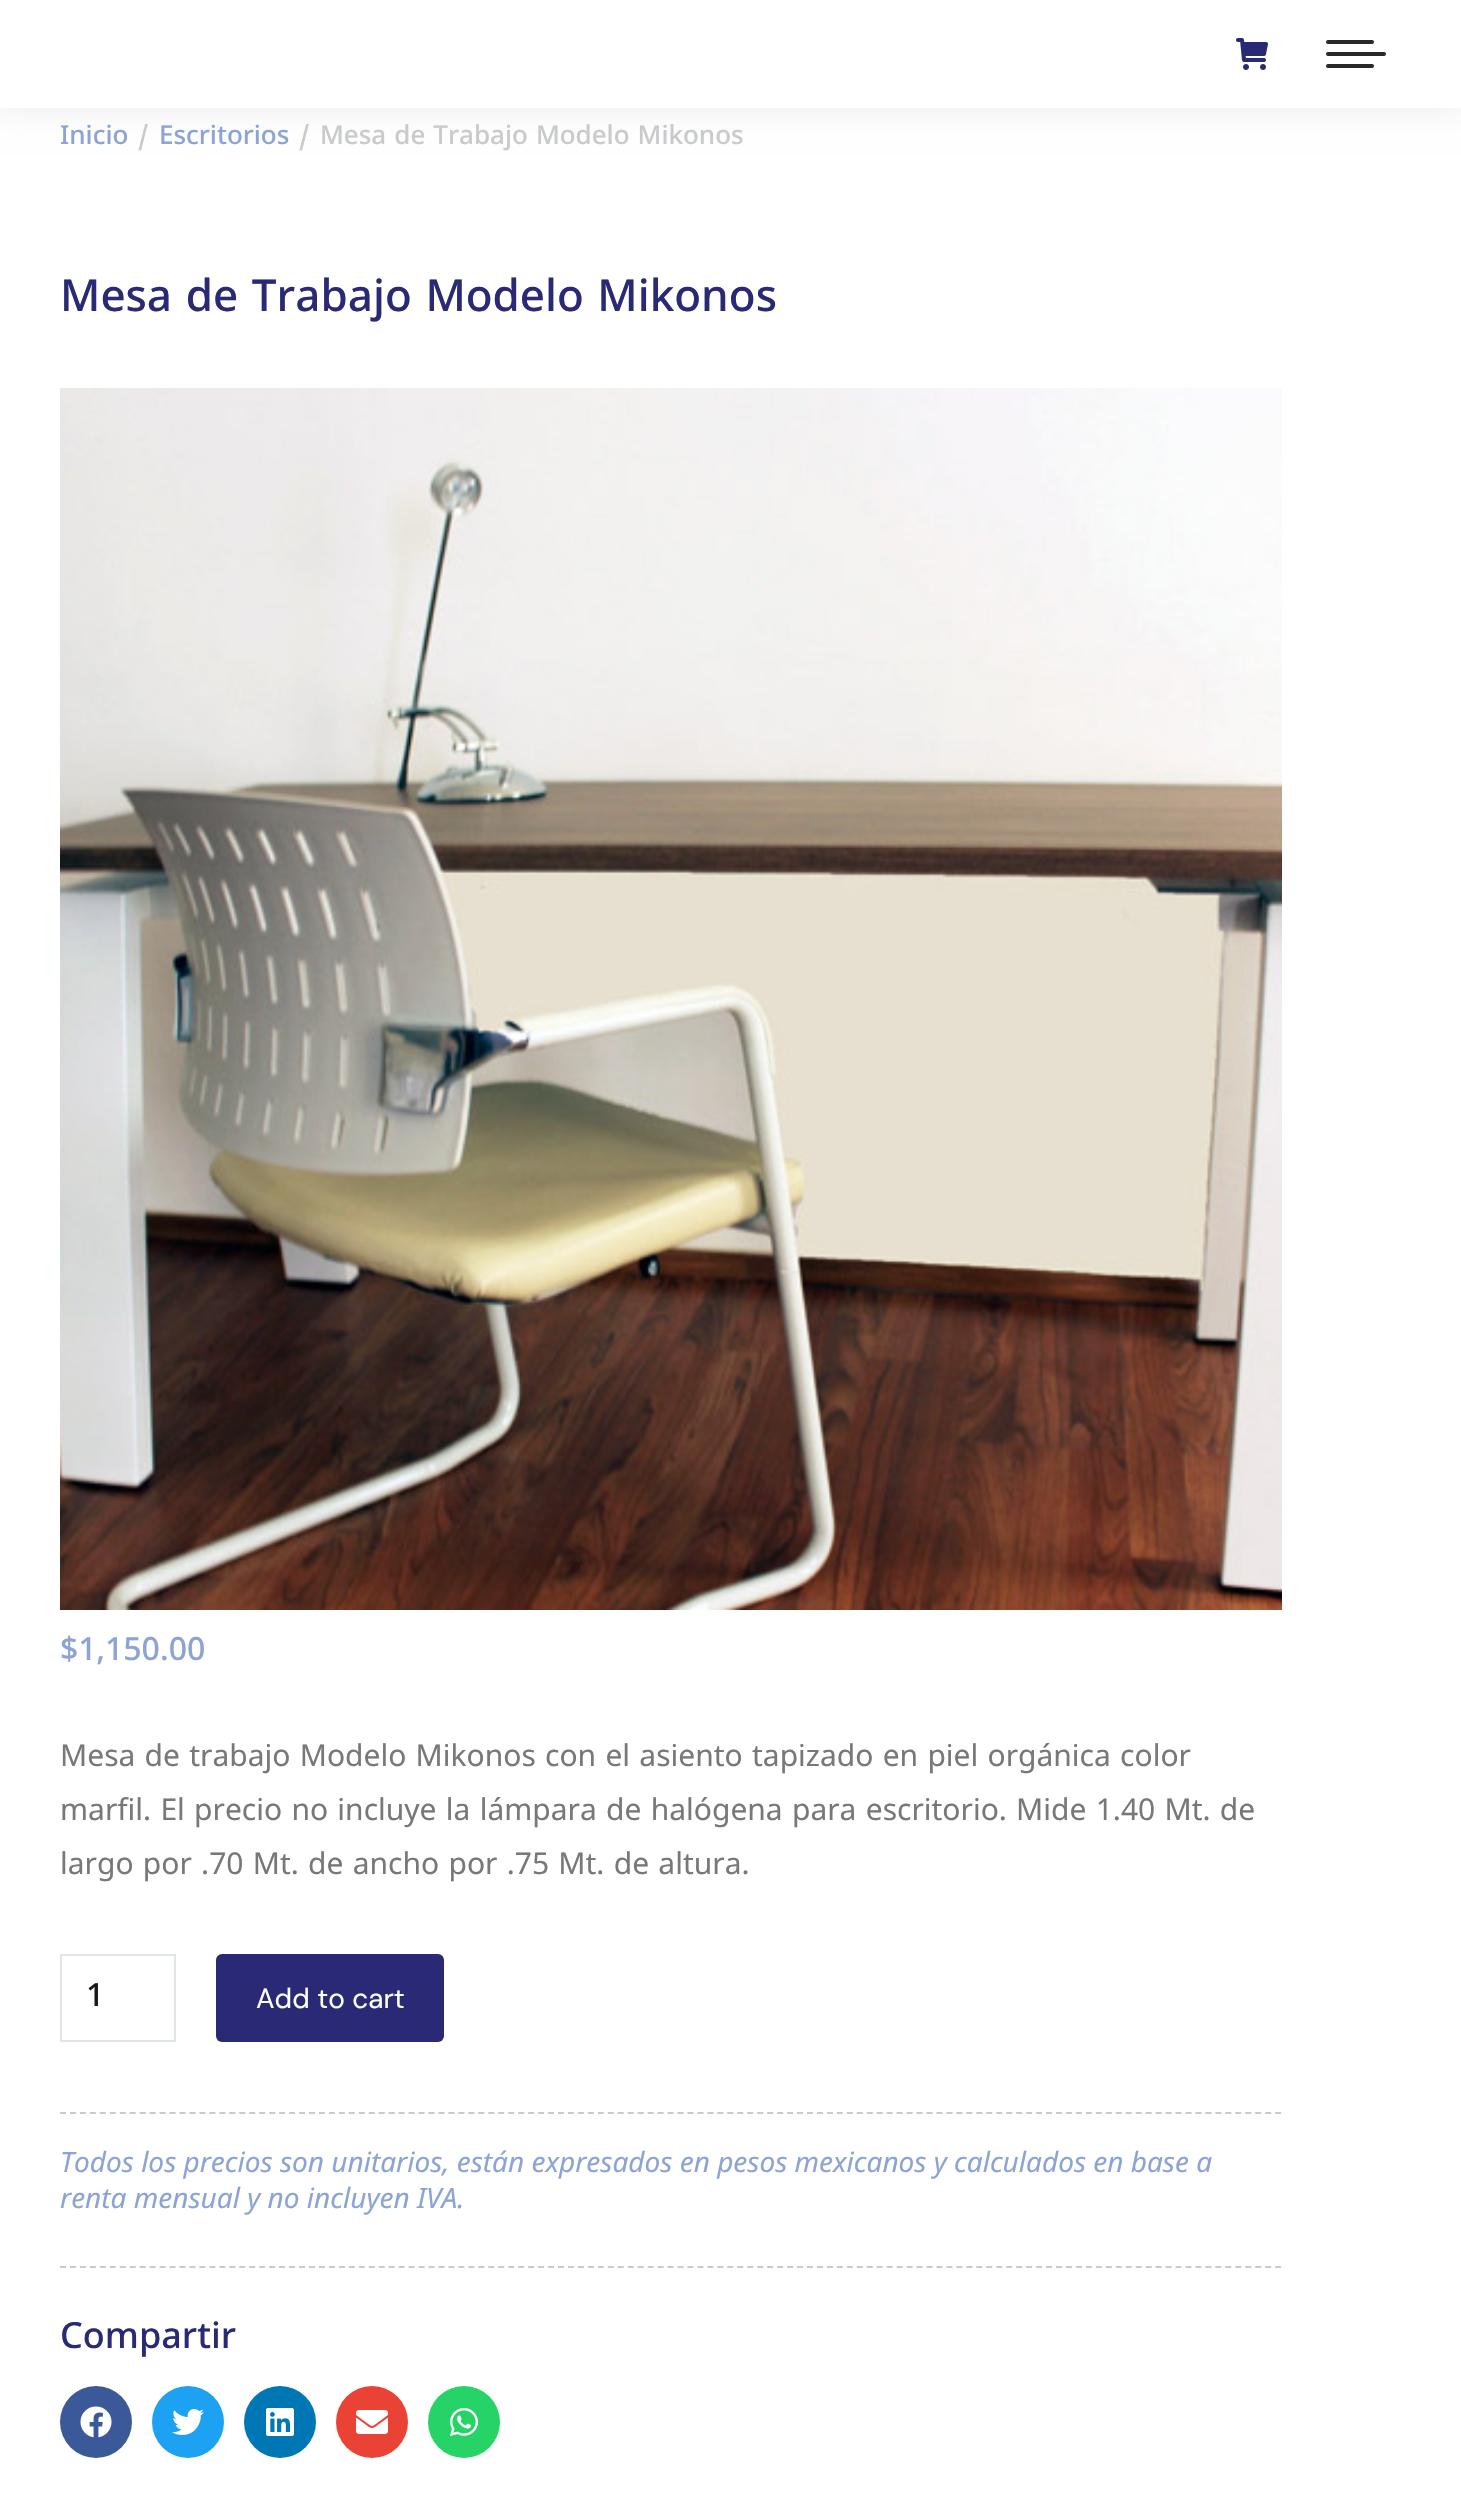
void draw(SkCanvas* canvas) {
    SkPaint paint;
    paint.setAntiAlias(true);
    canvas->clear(0xFFFFFFFF);
    paint.setColor(0x12000000);
    paint.setMaskFilter(SkMaskFilter::MakeBlur(kNormal_SkBlurStyle, 15));
    canvas->drawRect(SkRect::MakeXYWH(-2, -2, 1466, 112), paint);
    paint.setMaskFilter(nullptr);
    paint.setColor(0xFFFFFFFF);
    canvas->drawRect(SkRect::MakeXYWH(0, 0, 1461, 108), paint);
    canvas->drawImageRect(SkImages::DeferredFromEncodedData(SkData::MakeFromFileName("img1.png")), SkRect::MakeXYWH(1236, 38, 32, 32), SkSamplingOptions());
    paint.setColor(0xFF282828);
    canvas->drawRoundRect(SkRect::MakeXYWH(1326, 40, 48, 4), 2, 2, paint);
    canvas->drawRoundRect(SkRect::MakeXYWH(1326, 52, 60, 4), 2, 2, paint);
    canvas->drawRoundRect(SkRect::MakeXYWH(1326, 64, 48, 4), 2, 2, paint);
    SkFont font1(fontMgr->matchFamilyStyle("Noto Sans Malayalam", SkFontStyle(500, SkFontStyle::kNormal_Width, SkFontStyle::kUpright_Slant)), 26);
    font1.setSubpixel(true);
    paint.setColor(0xFF8CA4D5);
    canvas->drawString("Inicio", 60, 144, font1, paint);
    canvas->save();
    canvas->clipRect(SkRect::MakeXYWH(128, 124, 162, 32));
    paint.setColor(0xFFC8CACB);
    canvas->drawString("/", 138, 144, font1, paint);
    canvas->restore();
    paint.setColor(0xFF8CA4D5);
    canvas->drawString("Escritorios", 159, 144, font1, paint);
    canvas->save();
    canvas->clipRect(SkRect::MakeXYWH(290, 124, 454, 32));
    paint.setColor(0xFFC8CACB);
    canvas->drawString("/", 299, 144, font1, paint);
    canvas->restore();
    canvas->drawString("Mesa de Trabajo Modelo Mikonos", 320, 144, font1, paint);
    SkFont font2(fontMgr->matchFamilyStyle("Noto Sans Malayalam", SkFontStyle(500, SkFontStyle::kNormal_Width, SkFontStyle::kUpright_Slant)), 44);
    font2.setSubpixel(true);
    paint.setColor(0xFF292975);
    canvas->drawString("Mesa de Trabajo Modelo Mikonos", 60, 311, font2, paint);
    canvas->drawImageRect(SkImages::DeferredFromEncodedData(SkData::MakeFromFileName("img2.png")), SkRect::MakeXYWH(60, 388, 1222, 1222), SkSamplingOptions());
    SkFont font3(fontMgr->matchFamilyStyle("Noto Sans Malayalam", SkFontStyle(500, SkFontStyle::kNormal_Width, SkFontStyle::kUpright_Slant)), 32);
    font3.setSubpixel(true);
    paint.setColor(0xFF8CA4D5);
    canvas->drawString("$1,150.00", 60, 1660, font3, paint);
    SkFont font4(fontMgr->matchFamilyStyle("Noto Sans Malayalam", SkFontStyle::Normal()), 30);
    font4.setSubpixel(true);
    paint.setColor(0xFF787878);
    canvas->drawString("Mesa de trabajo Modelo Mikonos con el asiento tapizado en piel orgánica color", 60, 1766, font4, paint);
    canvas->drawString("marfil. El precio no incluye la lámpara de halógena para escritorio. Mide 1.40 Mt. de", 60, 1820, font4, paint);
    canvas->drawString("largo por .70 Mt. de ancho por .75 Mt. de altura.", 60, 1874, font4, paint);
    paint.setStyle(SkPaint::kStroke_Style);
    paint.setStrokeWidth(2);
    paint.setColor(0xFFE0E5E7);
    canvas->drawRect(SkRect::MakeXYWH(61, 1955, 114, 86), paint);
    paint.setStyle(SkPaint::kFill_Style);
    paint.setColor(0xFF151A1A);
    canvas->drawString("1", 86, 2006, font3, paint);
    paint.setColor(0xFF292975);
    canvas->drawRoundRect(SkRect::MakeXYWH(216, 1954, 228, 88), 6, 6, paint);
    SkFont font5(fontMgr->matchFamilyStyle("DM Sans", SkFontStyle::Normal()), 28);
    font5.setSubpixel(true);
    paint.setColor(0xFFFFFFFF);
    canvas->drawString("Add to cart", 256, 2008, font5, paint);
    paint.setStyle(SkPaint::kStroke_Style);
    paint.setColor(0xFFC8CACB);
    paint.setPathEffect(SkDashPathEffect::Make({{6, 3.96f}}, 0));
    canvas->drawPath(SkPathBuilder().moveTo(60, 2113).lineTo(1282, 2113).detach(), paint);
    paint.setPathEffect(nullptr);
    SkFont font6(fontMgr->matchFamilyStyle("Noto Sans", SkFontStyle::Italic()), 28);
    font6.setSubpixel(true);
    paint.setStyle(SkPaint::kFill_Style);
    paint.setColor(0xFF8CA4D5);
    canvas->drawString("Todos los precios son unitarios, están expresados en pesos mexicanos y calculados en base a", 60, 2172, font6, paint);
    canvas->drawString("renta mensual y no incluyen IVA.", 60, 2208, font6, paint);
    paint.setStyle(SkPaint::kStroke_Style);
    paint.setColor(0xFFC8CACB);
    paint.setPathEffect(SkDashPathEffect::Make({{6, 3.96f}}, 0));
    canvas->drawPath(SkPathBuilder().moveTo(60, 2267).lineTo(1282, 2267).detach(), paint);
    paint.setPathEffect(nullptr);
    SkFont font7(fontMgr->matchFamilyStyle("Noto Sans Malayalam", SkFontStyle(500, SkFontStyle::kNormal_Width, SkFontStyle::kUpright_Slant)), 36);
    font7.setSubpixel(true);
    paint.setStyle(SkPaint::kFill_Style);
    paint.setColor(0xFF292975);
    canvas->drawString("Compartir", 60, 2348, font7, paint);
    paint.setColor(0xFF3B5998);
    canvas->drawCircle(96, 2422, 36, paint);
    canvas->drawImageRect(SkImages::DeferredFromEncodedData(SkData::MakeFromFileName("img3.png")), SkRect::MakeXYWH(80, 2406, 32, 32), SkSamplingOptions());
    paint.setColor(0xFF1DA1F2);
    canvas->drawCircle(188, 2422, 36, paint);
    canvas->drawImageRect(SkImages::DeferredFromEncodedData(SkData::MakeFromFileName("img4.png")), SkRect::MakeXYWH(172, 2409, 32, 26), SkSamplingOptions());
    paint.setColor(0xFF0077B5);
    canvas->drawCircle(280, 2422, 36, paint);
    canvas->drawImageRect(SkImages::DeferredFromEncodedData(SkData::MakeFromFileName("img5.png")), SkRect::MakeXYWH(266, 2408, 28, 28), SkSamplingOptions());
    paint.setColor(0xFFEA4335);
    canvas->drawCircle(372, 2422, 36, paint);
    canvas->drawImageRect(SkImages::DeferredFromEncodedData(SkData::MakeFromFileName("img6.png")), SkRect::MakeXYWH(356, 2410, 32, 24), SkSamplingOptions());
    paint.setColor(0xFF25D366);
    canvas->drawCircle(464, 2422, 36, paint);
    canvas->drawImageRect(SkImages::DeferredFromEncodedData(SkData::MakeFromFileName("img7.png")), SkRect::MakeXYWH(450, 2408, 28, 28), SkSamplingOptions());
}
